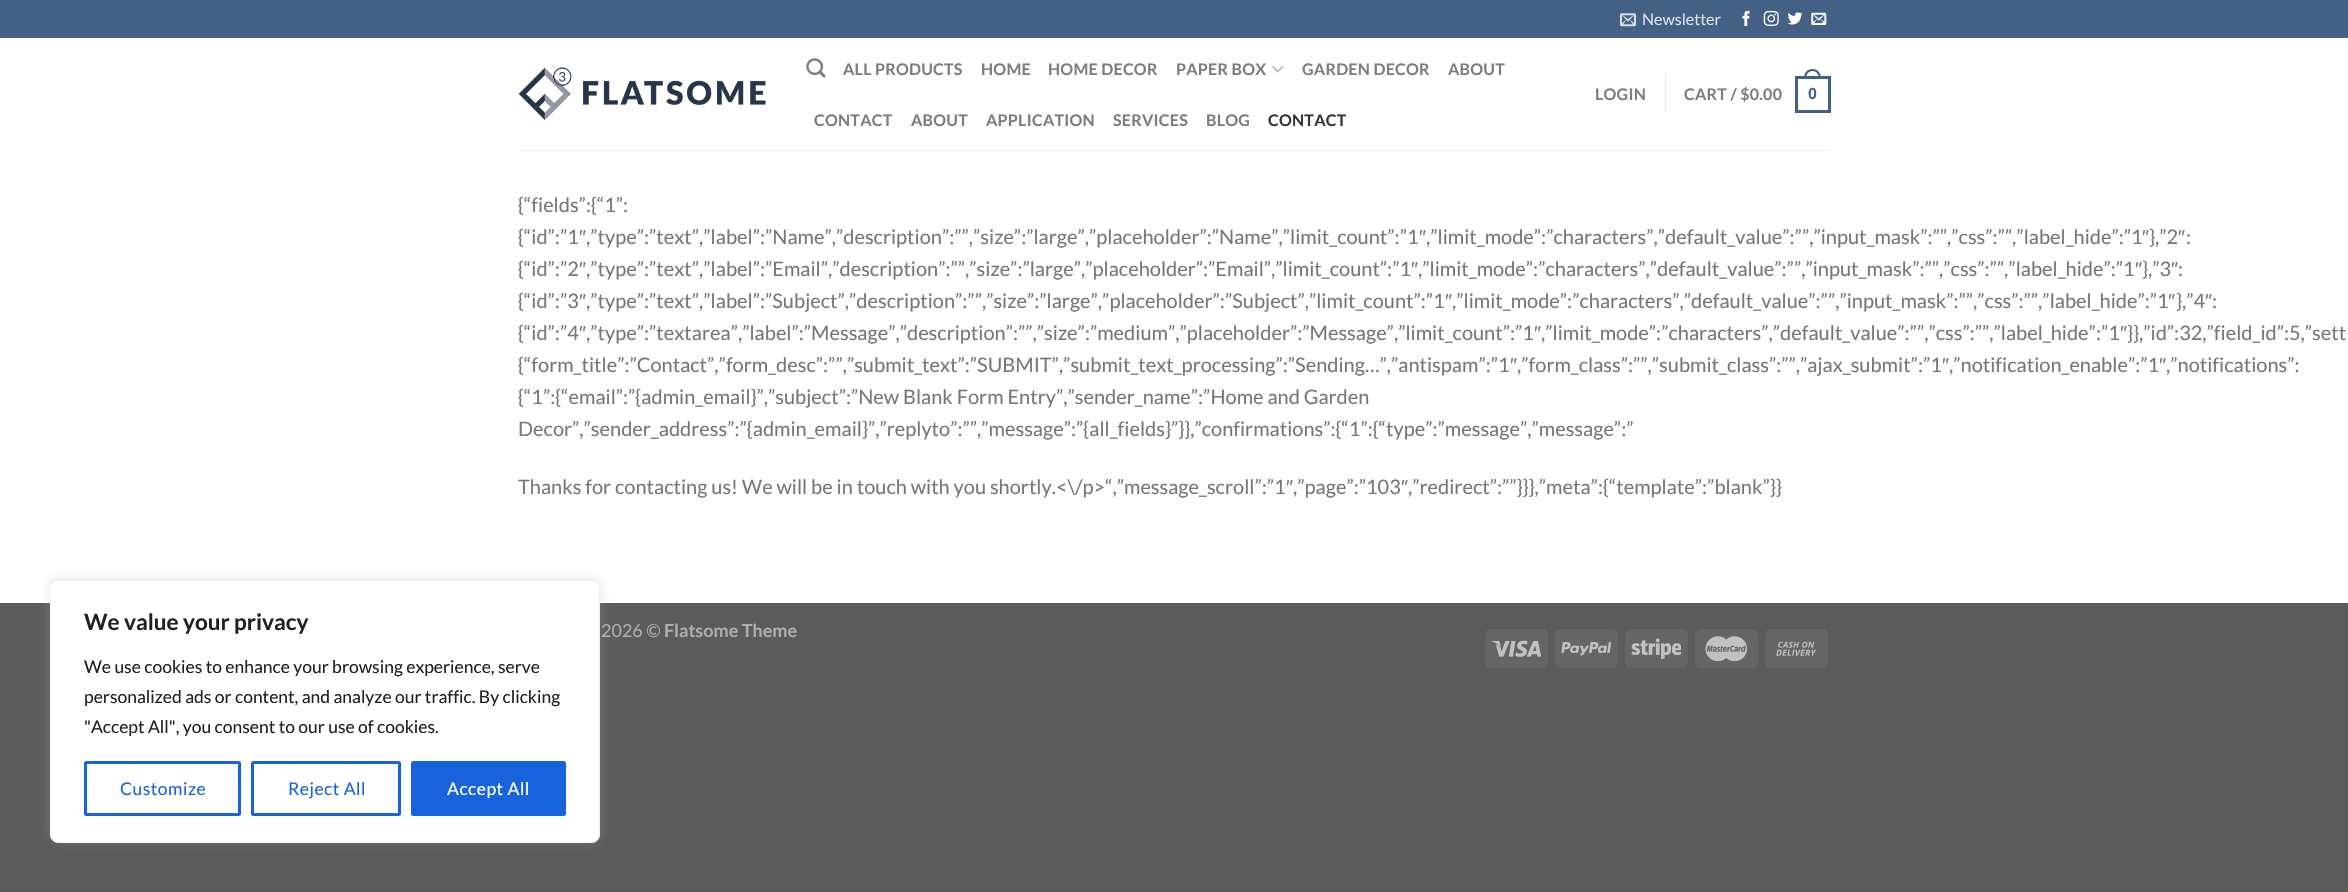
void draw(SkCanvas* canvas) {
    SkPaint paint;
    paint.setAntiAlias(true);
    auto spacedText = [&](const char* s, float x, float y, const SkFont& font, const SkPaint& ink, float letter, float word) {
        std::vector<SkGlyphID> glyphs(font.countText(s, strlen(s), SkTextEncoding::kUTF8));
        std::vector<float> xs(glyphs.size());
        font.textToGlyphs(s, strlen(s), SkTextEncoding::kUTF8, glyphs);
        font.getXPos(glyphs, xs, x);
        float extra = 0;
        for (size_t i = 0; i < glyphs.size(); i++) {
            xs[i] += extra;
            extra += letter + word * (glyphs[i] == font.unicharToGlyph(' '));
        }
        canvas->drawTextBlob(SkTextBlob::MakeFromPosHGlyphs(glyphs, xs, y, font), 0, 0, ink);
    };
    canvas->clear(0xFF5B5B5B);
    paint.setColor(0xFFFFFFFF);
    canvas->drawRect(SkRect::MakeXYWH(0, 38, 2348, 565), paint);
    paint.setColor(0xFF446084);
    canvas->drawRect(SkRect::MakeXYWH(0, 0, 2348, 38), paint);
    canvas->drawImageRect(SkImages::DeferredFromEncodedData(SkData::MakeFromFileName("img1.png")), SkRect::MakeXYWH(1620, 13, 16, 14), SkSamplingOptions());
    SkFont font1(fontMgr->matchFamilyStyle("Lato", SkFontStyle::Normal()), 16);
    font1.setSubpixel(true);
    paint.setColor(0xFFDADFE6);
    canvas->drawString("Newsletter", 1642, 25, font1, paint);
    canvas->drawImageRect(SkImages::DeferredFromEncodedData(SkData::MakeFromFileName("img2.png")), SkRect::MakeXYWH(1742, 10, 8, 16), SkSamplingOptions());
    canvas->drawImageRect(SkImages::DeferredFromEncodedData(SkData::MakeFromFileName("img3.png")), SkRect::MakeXYWH(1763, 10, 16, 16), SkSamplingOptions());
    canvas->drawImageRect(SkImages::DeferredFromEncodedData(SkData::MakeFromFileName("img4.png")), SkRect::MakeXYWH(1787, 12, 16, 13), SkSamplingOptions());
    canvas->drawImageRect(SkImages::DeferredFromEncodedData(SkData::MakeFromFileName("img5.png")), SkRect::MakeXYWH(1811, 12, 16, 13), SkSamplingOptions());
    canvas->drawImageRect(SkImages::DeferredFromEncodedData(SkData::MakeFromFileName("img6.png")), SkRect::MakeXYWH(518, 67, 248, 53), SkSamplingOptions());
    canvas->drawImageRect(SkImages::DeferredFromEncodedData(SkData::MakeFromFileName("img7.png")), SkRect::MakeXYWH(806, 58, 20, 20), SkSamplingOptions());
    SkFont font2(fontMgr->matchFamilyStyle("Lato", SkFontStyle::Bold()), 16);
    font2.setSubpixel(true);
    paint.setColor(0xFF7D7D7D);
    spacedText("ALL PRODUCTS", 843, 75, font2, paint, 0.25f, 0);
    spacedText("HOME", 981, 75, font2, paint, 0.25f, 0);
    spacedText("HOME DECOR", 1048, 75, font2, paint, 0.25f, 0);
    spacedText("PAPER BOX", 1176, 75, font2, paint, 0.25f, 0);
    canvas->drawImageRect(SkImages::DeferredFromEncodedData(SkData::MakeFromFileName("img8.png")), SkRect::MakeXYWH(1272, 66, 12, 7), SkSamplingOptions());
    spacedText("GARDEN DECOR", 1302, 75, font2, paint, 0.25f, 0);
    spacedText("ABOUT", 1448, 75, font2, paint, 0.25f, 0);
    spacedText("CONTACT", 814, 126, font2, paint, 0.25f, 0);
    spacedText("ABOUT", 911, 126, font2, paint, 0.25f, 0);
    spacedText("APPLICATION", 986, 126, font2, paint, 0.25f, 0);
    spacedText("SERVICES", 1113, 126, font2, paint, 0.25f, 0);
    spacedText("BLOG", 1206, 126, font2, paint, 0.25f, 0);
    paint.setColor(0xFF363636);
    spacedText("CONTACT", 1268, 126, font2, paint, 0.25f, 0);
    paint.setColor(0xFF7D7D7D);
    spacedText("LOGIN", 1595, 100, font2, paint, 0.25f, 0);
    paint.setColor(0xFFE6E6E6);
    canvas->drawRect(SkRect::MakeXYWH(1665, 75, 1, 38), paint);
    paint.setColor(0xFF7D7D7D);
    spacedText("CART / $0.00", 1684, 100, font2, paint, 0.25f, 0);
    paint.setStyle(SkPaint::kStroke_Style);
    paint.setStrokeWidth(3);
    paint.setColor(0xFF446084);
    canvas->drawRect(SkRect::MakeXYWH(1796.5f, 77.5f, 33, 34), paint);
    paint.setStyle(SkPaint::kFill_Style);
    canvas->drawPath(SkPathBuilder(SkPathFillType::kEvenOdd).moveTo(1812.5f, 69).cubicTo(1818.5f, 69, 1821, 73.5f, 1821, 79).lineTo(1804, 79).cubicTo(1804, 73.5f, 1806.5f, 69, 1812.5f, 69).close().moveTo(1812.5f, 71).cubicTo(1817, 71, 1819, 75, 1819, 79).lineTo(1806, 79).cubicTo(1806, 75, 1808, 71, 1812.5f, 71).close().detach(), paint);
    SkFont font3(fontMgr->matchFamilyStyle("Liberation Sans", SkFontStyle::Bold()), 16);
    font3.setSubpixel(true);
    spacedText("0", 1808, 99, font3, paint, 0.25f, 0);
    paint.setColor(0xFFF1F1F1);
    canvas->drawRect(SkRect::MakeXYWH(519, 150, 1312, 1), paint);
    SkFont font4(fontMgr->matchFamilyStyle("Lato", SkFontStyle::Normal()), 20);
    font4.setSubpixel(true);
    paint.setColor(0xFF777777);
    canvas->drawString("{“fields”:{“1”:", 518, 212, font4, paint);
    canvas->drawString("{“id”:”1", 518, 244, font4, paint);
    SkFont font5(fontMgr->matchFamilyStyle("Liberation Sans", SkFontStyle::Normal()), 20);
    font5.setSubpixel(true);
    canvas->drawString("″", 579, 244, font5, paint);
    canvas->drawString(",”type”:”text”,”label”:”Name”,”description”:””,”size”:”large”,”placeholder”:”Name”,”limit_count”:”1", 586, 244, font4, paint);
    canvas->drawString("″", 1419, 244, font5, paint);
    canvas->drawString(",”limit_mode”:”characters”,”default_value”:””,”input_mask”:””,”css”:””,”label_hide”:”1", 1426, 244, font4, paint);
    canvas->drawString("″", 2142, 244, font5, paint);
    canvas->drawString("},”2", 2149, 244, font4, paint);
    canvas->drawString("″", 2178, 244, font5, paint);
    canvas->drawString(":", 2186, 244, font4, paint);
    canvas->drawString("{“id”:”2", 518, 276, font4, paint);
    canvas->drawString("″", 579, 276, font5, paint);
    canvas->drawString(",”type”:”text”,”label”:”Email”,”description”:””,”size”:”large”,”placeholder”:”Email”,”limit_count”:”1", 586, 276, font4, paint);
    canvas->drawString("″", 1411, 276, font5, paint);
    canvas->drawString(",”limit_mode”:”characters”,”default_value”:””,”input_mask”:””,”css”:””,”label_hide”:”1", 1418, 276, font4, paint);
    canvas->drawString("″", 2135, 276, font5, paint);
    canvas->drawString("},”3", 2142, 276, font4, paint);
    canvas->drawString("″", 2171, 276, font5, paint);
    canvas->drawString(":", 2178, 276, font4, paint);
    canvas->drawString("{“id”:”3", 518, 308, font4, paint);
    canvas->drawString("″", 579, 308, font5, paint);
    canvas->drawString(",”type”:”text”,”label”:”Subject”,”description”:””,”size”:”large”,”placeholder”:”Subject”,”limit_count”:”1", 586, 308, font4, paint);
    canvas->drawString("″", 1445, 308, font5, paint);
    canvas->drawString(",”limit_mode”:”characters”,”default_value”:””,”input_mask”:””,”css”:””,”label_hide”:”1", 1452, 308, font4, paint);
    canvas->drawString("″", 2168, 308, font5, paint);
    canvas->drawString("},”4", 2176, 308, font4, paint);
    canvas->drawString("″", 2205, 308, font5, paint);
    canvas->drawString(":", 2212, 308, font4, paint);
    canvas->drawString("{“id”:”4", 518, 340, font4, paint);
    canvas->drawString("″", 579, 340, font5, paint);
    canvas->drawString(",”type”:”textarea”,”label”:”Message”,”description”:””,”size”:”medium”,”placeholder”:”Message”,”limit_count”:”1", 586, 340, font4, paint);
    canvas->drawString("″", 1534, 340, font5, paint);
    canvas->drawString(",”limit_mode”:”characters”,”default_value”:””,”css”:””,”label_hide”:”1", 1541, 340, font4, paint);
    canvas->drawString("″", 2120, 340, font5, paint);
    canvas->drawString("}},”id”:32,”field_id”:5,”sett", 2127, 340, font4, paint);
    canvas->drawString("{“form_title”:”Contact”,”form_desc”:””,”submit_text”:”SUBMIT”,”submit_text_processing”:”Sending…”,”antispam”:”1", 518, 372, font4, paint);
    canvas->drawString("″", 1510, 372, font5, paint);
    canvas->drawString(",”form_class”:””,”submit_class”:””,”ajax_submit”:”1", 1517, 372, font4, paint);
    canvas->drawString("″", 1942, 372, font5, paint);
    canvas->drawString(",”notification_enable”:”1", 1949, 372, font4, paint);
    canvas->drawString("″", 2159, 372, font5, paint);
    canvas->drawString(",”notifications”:", 2166, 372, font4, paint);
    canvas->drawString("{“1”:{“email”:”{admin_email}”,”subject”:”New Blank Form Entry”,”sender_name”:”Home and Garden", 518, 404, font4, paint);
    canvas->drawString("Decor”,”sender_address”:”{admin_email}”,”replyto”:””,”message”:”{all_fields}”}},”confirmations”:{“1”:{“type”:”message”,”message”:”", 518, 436, font4, paint);
    canvas->drawString("Thanks for contacting us! We will be in touch with you shortly.<\\/p>“,”message_scroll”:”1", 518, 494, font4, paint);
    canvas->drawString("″", 1286, 494, font5, paint);
    canvas->drawString(",”page”:”103", 1293, 494, font4, paint);
    canvas->drawString("″", 1401, 494, font5, paint);
    canvas->drawString(",”redirect”:””}}},”meta”:{“template”:”blank”}}", 1408, 494, font4, paint);
    SkFont font6(fontMgr->matchFamilyStyle("Lato", SkFontStyle::Normal()), 18);
    font6.setSubpixel(true);
    paint.setColor(0xFFADADAD);
    canvas->drawString("2026 ©", 601, 637, font6, paint);
    SkFont font7(fontMgr->matchFamilyStyle("Lato", SkFontStyle::Bold()), 18);
    font7.setSubpixel(true);
    canvas->drawString("Flatsome Theme", 664, 637, font7, paint);
    paint.setColor(0xFF656565);
    canvas->drawRoundRect(SkRect::MakeXYWH(1485, 629, 63, 39), 6, 6, paint);
    canvas->drawImageRect(SkImages::DeferredFromEncodedData(SkData::MakeFromFileName("img9.png")), SkRect::MakeXYWH(1491, 640, 50, 17), SkSamplingOptions());
    canvas->drawRoundRect(SkRect::MakeXYWH(1555, 629, 63, 39), 6, 6, paint);
    canvas->drawImageRect(SkImages::DeferredFromEncodedData(SkData::MakeFromFileName("img10.png")), SkRect::MakeXYWH(1561, 642, 50, 14), SkSamplingOptions());
    canvas->drawRoundRect(SkRect::MakeXYWH(1625, 629, 63, 39), 6, 6, paint);
    canvas->drawImageRect(SkImages::DeferredFromEncodedData(SkData::MakeFromFileName("img11.png")), SkRect::MakeXYWH(1631, 638, 50, 22), SkSamplingOptions());
    canvas->drawRoundRect(SkRect::MakeXYWH(1695, 629, 63, 39), 6, 6, paint);
    canvas->drawImageRect(SkImages::DeferredFromEncodedData(SkData::MakeFromFileName("img12.png")), SkRect::MakeXYWH(1705, 636, 43, 25), SkSamplingOptions());
    canvas->drawRoundRect(SkRect::MakeXYWH(1765, 629, 63, 39), 6, 6, paint);
    canvas->drawImageRect(SkImages::DeferredFromEncodedData(SkData::MakeFromFileName("img13.png")), SkRect::MakeXYWH(1776, 641, 41, 15), SkSamplingOptions());
    paint.setColor(0x4DACABAB);
    paint.setMaskFilter(SkMaskFilter::MakeBlur(kNormal_SkBlurStyle, 6));
    canvas->drawRoundRect(SkRect::MakeXYWH(50, 579, 550, 262), 8, 8, paint);
    paint.setMaskFilter(nullptr);
    paint.setColor(0xFFFFFFFF);
    canvas->drawRoundRect(SkRect::MakeXYWH(50.5f, 580.5f, 549, 262), 7.5f, 7.5f, paint);
    paint.setStyle(SkPaint::kStroke_Style);
    paint.setStrokeWidth(1);
    paint.setColor(0xFFF4F4F4);
    canvas->drawRoundRect(SkRect::MakeXYWH(50.5f, 580.5f, 549, 262), 7.5f, 7.5f, paint);
    SkFont font8(fontMgr->matchFamilyStyle("Lato", SkFontStyle::Bold()), 22.5f);
    font8.setSubpixel(true);
    paint.setStyle(SkPaint::kFill_Style);
    paint.setColor(0xFF212121);
    canvas->drawString("We value your privacy", 84, 630, font8, paint);
    SkFont font9(fontMgr->matchFamilyStyle("Lato", SkFontStyle::Normal()), 17.5f);
    font9.setSubpixel(true);
    canvas->drawString("We use cookies to enhance your browsing experience, serve", 84, 673, font9, paint);
    canvas->drawString("personalized ads or content, and analyze our traffic. By clicking", 84, 703, font9, paint);
    canvas->drawString("\"Accept All\", you consent to our use of cookies.", 84, 733, font9, paint);
    paint.setStyle(SkPaint::kStroke_Style);
    paint.setStrokeWidth(3);
    paint.setColor(0xFF1863DC);
    canvas->drawRoundRect(SkRect::MakeXYWH(85.5f, 762.5f, 154, 52), 1, 1, paint);
    paint.setStyle(SkPaint::kFill_Style);
    spacedText("Customize", 120, 795, font9, paint, 0.5f, 0);
    paint.setStyle(SkPaint::kStroke_Style);
    canvas->drawRoundRect(SkRect::MakeXYWH(252.5f, 762.5f, 147, 52), 1, 1, paint);
    paint.setStyle(SkPaint::kFill_Style);
    spacedText("Reject All", 288, 795, font9, paint, 0.5f, 0);
    canvas->drawRoundRect(SkRect::MakeXYWH(412.5f, 762.5f, 152, 52), 1, 1, paint);
    paint.setStyle(SkPaint::kStroke_Style);
    canvas->drawRoundRect(SkRect::MakeXYWH(412.5f, 762.5f, 152, 52), 1, 1, paint);
    paint.setStyle(SkPaint::kFill_Style);
    paint.setColor(0xFFFFFFFF);
    spacedText("Accept All", 447, 795, font9, paint, 0.5f, 0);
}
